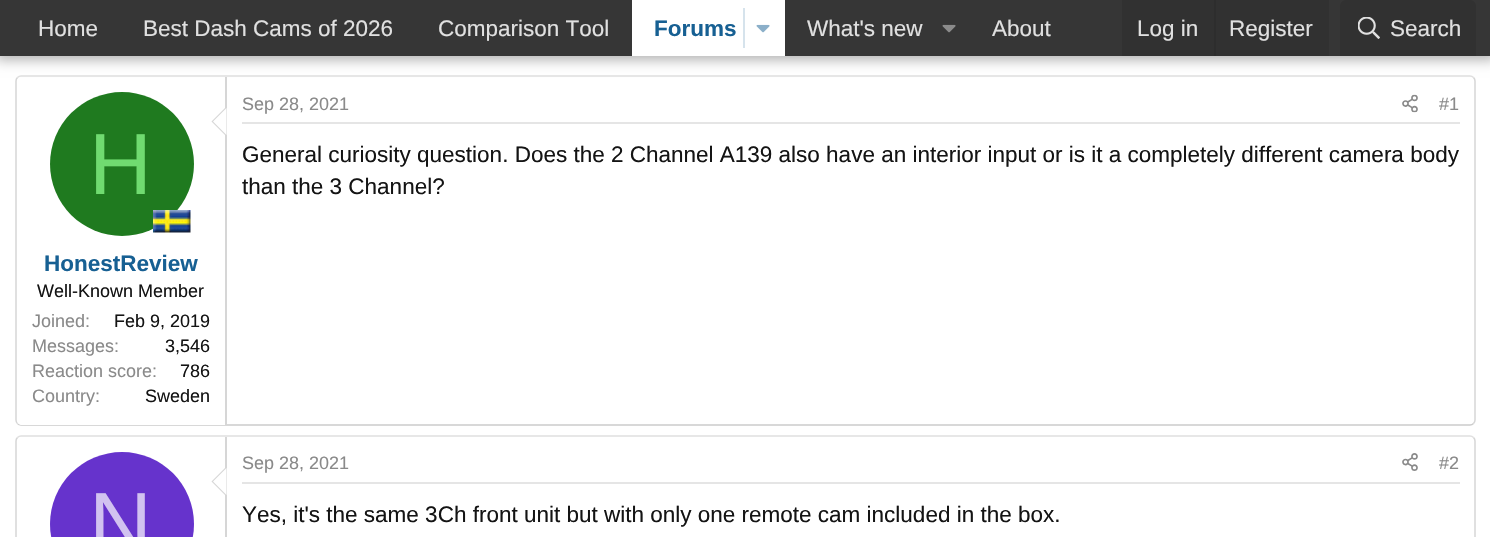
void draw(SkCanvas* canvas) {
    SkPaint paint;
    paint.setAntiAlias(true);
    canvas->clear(0xFFFFFFFF);
    paint.setStyle(SkPaint::kStroke_Style);
    paint.setStrokeWidth(1.5f);
    paint.setColor(0xFFE0E0E0);
    canvas->drawPath(SkPathBuilder().moveTo(17.5f, 77.5f).cubicTo(18.5f, 76.5f, 19.5f, 76, 21, 76).lineTo(1470, 76).cubicTo(1471.5f, 76, 1472.5f, 76.5f, 1473.5f, 77.5f).detach(), paint);
    paint.setColor(0xFFD6D6D6);
    canvas->drawPath(SkPathBuilder().moveTo(1473.5f, 77.5f).cubicTo(1474.5f, 78.5f, 1475, 79.5f, 1475, 81).lineTo(1475, 420).cubicTo(1475, 421.5f, 1474.5f, 422.5f, 1473.5f, 423.5f).detach(), paint);
    paint.setColor(0xFFCCCCCC);
    canvas->drawPath(SkPathBuilder().moveTo(1473.5f, 423.5f).cubicTo(1472.5f, 424.5f, 1471.5f, 425, 1470, 425).lineTo(21, 425).cubicTo(19.5f, 425, 18.5f, 424.5f, 17.5f, 423.5f).detach(), paint);
    paint.setColor(0xFFD6D6D6);
    canvas->drawPath(SkPathBuilder().moveTo(17.5f, 423.5f).cubicTo(16.5f, 422.5f, 16, 421.5f, 16, 420).lineTo(16, 81).cubicTo(16, 79.5f, 16.5f, 78.5f, 17.5f, 77.5f).detach(), paint);
    paint.setStyle(SkPaint::kFill_Style);
    paint.setColor(0xFFFFFFFF);
    canvas->drawPath(SkPathBuilder().moveTo(22, 77).lineTo(227, 77).lineTo(227, 425).lineTo(22, 425).cubicTo(19, 425, 17, 423, 17, 420).lineTo(17, 82).cubicTo(17, 79, 19, 77, 22, 77).close().detach(), paint);
    paint.setColor(0xFFD6D6D6);
    canvas->drawRect(SkRect::MakeXYWH(225, 77, 2, 348), paint);
    paint.setColor(0x4D000000);
    paint.setMaskFilter(SkMaskFilter::MakeBlur(kNormal_SkBlurStyle, 6));
    canvas->drawRect(SkRect::MakeXYWH(-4, -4, 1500, 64), paint);
    paint.setMaskFilter(nullptr);
    paint.setColor(0xFF363636);
    canvas->drawRect(SkRect::MakeXYWH(0, 0, 1490, 56), paint);
    SkFont font1(fontMgr->matchFamilyStyle("Liberation Sans", SkFontStyle::Normal()), 22.5f);
    font1.setSubpixel(true);
    paint.setColor(0xFFE0E0E0);
    canvas->drawString("Home", 38, 36, font1, paint);
    canvas->drawString("Best Dash Cams of 2026", 143, 36, font1, paint);
    canvas->drawString("Comparison Tool", 438, 36, font1, paint);
    paint.setColor(0xFFFFFFFF);
    canvas->drawRect(SkRect::MakeXYWH(632, 0, 153, 56), paint);
    SkFont font2(fontMgr->matchFamilyStyle("Liberation Sans", SkFontStyle::Bold()), 22.5f);
    font2.setSubpixel(true);
    paint.setColor(0xFF176093);
    canvas->drawString("Forums", 654, 36, font2, paint);
    paint.setColor(0xFFD6E3EC);
    canvas->drawRect(SkRect::MakeXYWH(743, 8, 2, 40), paint);
    canvas->drawImageRect(SkImages::DeferredFromEncodedData(SkData::MakeFromFileName("img1.png")), SkRect::MakeXYWH(756, 24, 14, 9), SkSamplingOptions());
    paint.setColor(0xFFE0E0E0);
    canvas->drawString("What's new", 807, 36, font1, paint);
    canvas->drawImageRect(SkImages::DeferredFromEncodedData(SkData::MakeFromFileName("img2.png")), SkRect::MakeXYWH(942, 24, 14, 9), SkSamplingOptions());
    canvas->drawString("About", 992, 36, font1, paint);
    paint.setColor(0xFF313131);
    canvas->drawRect(SkRect::MakeXYWH(1122, 0, 207, 56), paint);
    paint.setColor(0xFFE0E0E0);
    canvas->drawString("Log in", 1137, 36, font1, paint);
    paint.setColor(0xFF2D2D2D);
    canvas->drawRect(SkRect::MakeXYWH(1214, 0, 2, 56), paint);
    paint.setColor(0xFFE0E0E0);
    canvas->drawString("Register", 1229, 36, font1, paint);
    paint.setColor(0xFF313131);
    canvas->drawPath(SkPathBuilder().moveTo(1346, 0).lineTo(1470, 0).cubicTo(1473.5f, 0, 1476, 2.5f, 1476, 6).lineTo(1476, 56).lineTo(1340, 56).lineTo(1340, 6).cubicTo(1340, 2.5f, 1342.5f, 0, 1346, 0).close().detach(), paint);
    canvas->drawImageRect(SkImages::DeferredFromEncodedData(SkData::MakeFromFileName("img3.png")), SkRect::MakeXYWH(1358, 17, 22, 22), SkSamplingOptions());
    paint.setColor(0xFFE0E0E0);
    canvas->drawString("Search", 1390, 36, font1, paint);
    paint.setColor(0xFFD6D6D6);
    canvas->drawPath(SkPathBuilder().moveTo(226.5f, 106.5f).lineTo(226.5f, 136.5f).lineTo(211.5f, 121.5f).close().detach(), paint);
    paint.setColor(0xFFFFFFFF);
    canvas->drawPath(SkPathBuilder().moveTo(226.5f, 108).lineTo(226.5f, 135).lineTo(213, 121.5f).close().detach(), paint);
    paint.setColor(0xFF1F7A1F);
    canvas->drawCircle(122, 164, 72, paint);
    SkFont font3(fontMgr->matchFamilyStyle("Liberation Sans", SkFontStyle::Normal()), 87);
    font3.setSubpixel(true);
    paint.setColor(0xFF70DB70);
    canvas->drawString("H", 89, 194, font3, paint);
    canvas->drawImageRect(SkImages::DeferredFromEncodedData(SkData::MakeFromFileName("img4.png")), SkRect::MakeXYWH(153, 210, 38, 23), SkSamplingOptions());
    paint.setColor(0xFF176093);
    canvas->drawString("HonestReview", 44, 271, font2, paint);
    SkFont font4(fontMgr->matchFamilyStyle("Liberation Sans", SkFontStyle::Normal()), 18);
    font4.setSubpixel(true);
    paint.setColor(0xFF141414);
    canvas->drawString("Well-Known Member", 37, 297, font4, paint);
    paint.setColor(0xFF8A8A8A);
    canvas->drawString("Joined:", 32, 327, font4, paint);
    paint.setColor(0xFF141414);
    canvas->drawString("Feb 9, 2019", 114, 327, font4, paint);
    paint.setColor(0xFF8A8A8A);
    canvas->drawString("Messages:", 32, 352, font4, paint);
    paint.setColor(0xFF141414);
    canvas->drawString("3,546", 165, 352, font4, paint);
    paint.setColor(0xFF8A8A8A);
    canvas->drawString("Reaction score:", 32, 377, font4, paint);
    paint.setColor(0xFF141414);
    canvas->drawString("786", 180, 377, font4, paint);
    paint.setColor(0xFF8A8A8A);
    canvas->drawString("Country:", 32, 402, font4, paint);
    paint.setColor(0xFF141414);
    canvas->drawString("Sweden", 145, 402, font4, paint);
    paint.setColor(0xFFE5E5E5);
    canvas->drawRect(SkRect::MakeXYWH(242, 122, 1218, 2), paint);
    paint.setColor(0xFF8A8A8A);
    canvas->drawString("Sep 28, 2021", 242, 110, font4, paint);
    canvas->drawImageRect(SkImages::DeferredFromEncodedData(SkData::MakeFromFileName("img5.png")), SkRect::MakeXYWH(1402, 94, 16, 19), SkSamplingOptions());
    canvas->drawString("#1", 1439, 110, font4, paint);
    paint.setColor(0xFF141414);
    canvas->drawString("General curiosity question. Does the 2 Channel A139 also have an interior input or is it a completely different camera body", 242, 162, font1, paint);
    canvas->drawString("than the 3 Channel?", 242, 194, font1, paint);
    paint.setStyle(SkPaint::kStroke_Style);
    paint.setColor(0xFFE0E0E0);
    canvas->drawPath(SkPathBuilder().moveTo(17.5f, 437.5f).cubicTo(18.5f, 436.5f, 19.5f, 436, 21, 436).lineTo(1470, 436).cubicTo(1471.5f, 436, 1472.5f, 436.5f, 1473.5f, 437.5f).detach(), paint);
    paint.setColor(0xFFD6D6D6);
    canvas->drawPath(SkPathBuilder().moveTo(1473.5f, 437.5f).cubicTo(1474.5f, 438.5f, 1475, 439.5f, 1475, 441).lineTo(1475, 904.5f).cubicTo(1475, 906, 1474.5f, 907, 1473.5f, 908).detach(), paint);
    canvas->drawPath(SkPathBuilder().moveTo(17.5f, 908).cubicTo(16.5f, 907, 16, 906, 16, 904.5f).lineTo(16, 441).cubicTo(16, 439.5f, 16.5f, 438.5f, 17.5f, 437.5f).detach(), paint);
    paint.setStyle(SkPaint::kFill_Style);
    canvas->drawRect(SkRect::MakeXYWH(225, 437, 2, 100), paint);
    canvas->drawPath(SkPathBuilder().moveTo(226.5f, 466.5f).lineTo(226.5f, 496.5f).lineTo(211.5f, 481.5f).close().detach(), paint);
    paint.setColor(0xFFFFFFFF);
    canvas->drawPath(SkPathBuilder().moveTo(226.5f, 468).lineTo(226.5f, 495).lineTo(213, 481.5f).close().detach(), paint);
    paint.setColor(0xFF6633CC);
    canvas->drawCircle(122, 524, 72, paint);
    paint.setColor(0xFFD1C2F0);
    canvas->drawString("N", 89, 553, font3, paint);
    paint.setColor(0xFFE5E5E5);
    canvas->drawRect(SkRect::MakeXYWH(242, 482, 1218, 2), paint);
    paint.setColor(0xFF8A8A8A);
    canvas->drawString("Sep 28, 2021", 242, 469, font4, paint);
    canvas->drawImageRect(SkImages::DeferredFromEncodedData(SkData::MakeFromFileName("img6.png")), SkRect::MakeXYWH(1402, 453, 16, 18), SkSamplingOptions());
    canvas->drawString("#2", 1439, 469, font4, paint);
    paint.setColor(0xFF141414);
    canvas->drawString("Yes, it's the same 3Ch front unit but with only one remote cam included in the box.", 242, 522, font1, paint);
}
